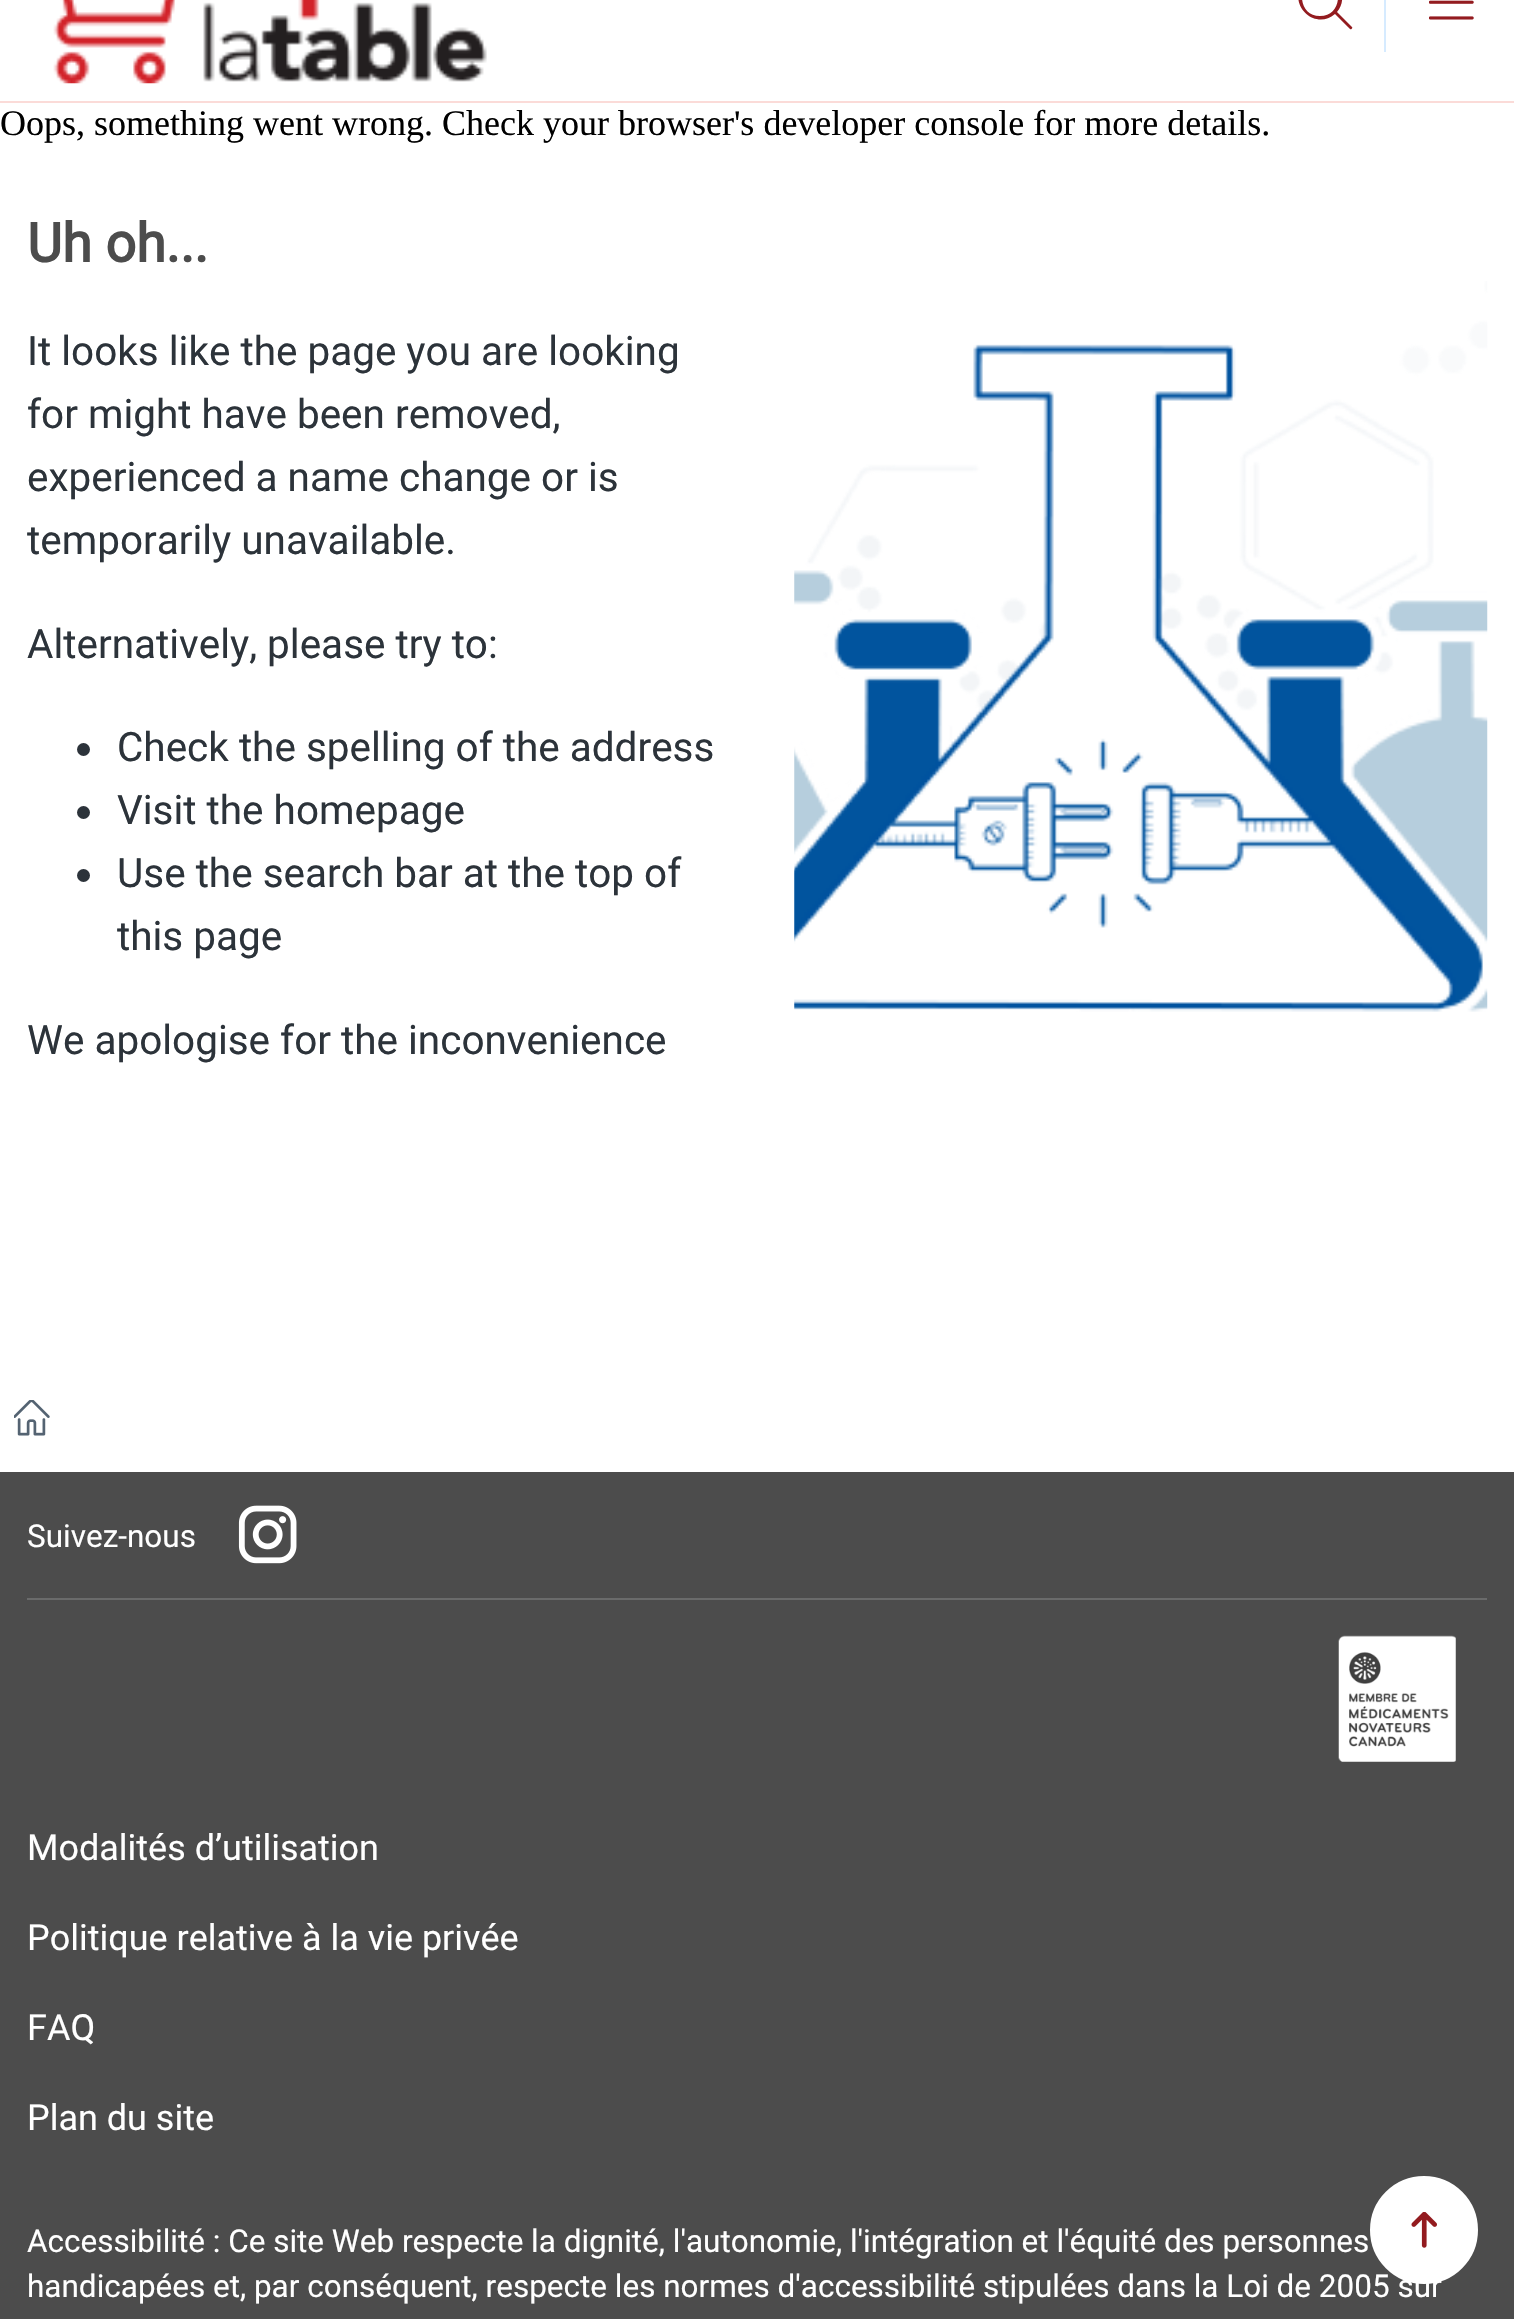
void draw(SkCanvas* canvas) {
    SkPaint paint;
    paint.setAntiAlias(true);
    canvas->clear(0xFFFFFFFF);
    paint.setColor(0xFFFBDBD8);
    canvas->drawRect(SkRect::MakeXYWH(0, 101, 1514, 2), paint);
    canvas->drawImageRect(SkImages::DeferredFromEncodedData(SkData::MakeFromFileName("img1.png")), SkRect::MakeXYWH(53, 0, 434, 84), SkSamplingOptions());
    paint.setColor(0xFF931B1F);
    canvas->drawPath(SkPathBuilder().moveTo(1320, -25).cubicTo(1339, -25, 1349, -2, 1337, 12).lineTo(1352, 27).cubicTo(1353, 28, 1351, 30, 1350, 29).lineTo(1335, 14).cubicTo(1314, 32, 1285, 2, 1305, -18).cubicTo(1309, -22, 1315, -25, 1320, -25).close().moveTo(1320, -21).cubicTo(1296, -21, 1296, 16, 1320, 16).cubicTo(1344, 16, 1344, -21, 1320, -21).close().detach(), paint);
    paint.setColor(0xFFD6EBFF);
    canvas->drawRect(SkRect::MakeXYWH(1384, 0, 2, 52), paint);
    canvas->drawImageRect(SkImages::DeferredFromEncodedData(SkData::MakeFromFileName("img2.png")), SkRect::MakeXYWH(1429, 0, 45, 20), SkSamplingOptions());
    SkFont font1(fontMgr->matchFamilyStyle("Liberation Serif", SkFontStyle::Normal()), 36);
    font1.setSubpixel(true);
    paint.setColor(0xFF000000);
    canvas->drawString("Oops, something went wrong. Check your browser's developer console for more details.", 0, 135, font1, paint);
    SkFont font2(fontMgr->matchFamilyStyle("Roboto", SkFontStyle::Bold()), 54);
    font2.setSubpixel(true);
    paint.setColor(0xFF4C4C4C);
    canvas->drawString("Uh oh...", 27, 262, font2, paint);
    SkFont font3(fontMgr->matchFamilyStyle("Roboto", SkFontStyle::Normal()), 40.5f);
    font3.setSubpixel(true);
    paint.setColor(0xFF2C333A);
    canvas->drawString("It looks like the page you are looking", 27, 365, font3, paint);
    canvas->drawString("for might have been removed,", 27, 428, font3, paint);
    canvas->drawString("experienced a name change or is", 27, 491, font3, paint);
    canvas->drawString("temporarily unavailable.", 27, 554, font3, paint);
    canvas->drawString("Alternatively, please try to:", 27, 658, font3, paint);
    canvas->drawCircle(83.5f, 749.5f, 6.5f, paint);
    canvas->drawString("Check the spelling of the address", 117, 761, font3, paint);
    canvas->drawCircle(83.5f, 812.5f, 6.5f, paint);
    canvas->drawString("Visit the homepage", 117, 824, font3, paint);
    canvas->drawCircle(83.5f, 875.5f, 6.5f, paint);
    canvas->drawString("Use the search bar at the top of", 117, 887, font3, paint);
    canvas->drawString("this page", 117, 950, font3, paint);
    canvas->drawString("We apologise for the inconvenience", 27, 1054, font3, paint);
    canvas->drawImageRect(SkImages::DeferredFromEncodedData(SkData::MakeFromFileName("img3.png")), SkRect::MakeXYWH(794, 281, 694, 731), SkSamplingOptions());
    canvas->drawImageRect(SkImages::DeferredFromEncodedData(SkData::MakeFromFileName("img4.png")), SkRect::MakeXYWH(14, 1400, 36, 36), SkSamplingOptions());
    paint.setColor(0xFF4C4C4C);
    canvas->drawRect(SkRect::MakeXYWH(0, 1472, 1514, 847), paint);
    SkFont font4(fontMgr->matchFamilyStyle("Roboto", SkFontStyle::Normal()), 31.5f);
    font4.setSubpixel(true);
    paint.setColor(0xFFFFFFFF);
    canvas->drawString("Suivez-nous", 27, 1547, font4, paint);
    canvas->drawImageRect(SkImages::DeferredFromEncodedData(SkData::MakeFromFileName("img5.png")), SkRect::MakeXYWH(238, 1505, 59, 59), SkSamplingOptions());
    paint.setColor(0xFF6A6B6B);
    canvas->drawRect(SkRect::MakeXYWH(27, 1598, 1460, 2), paint);
    canvas->drawImageRect(SkImages::DeferredFromEncodedData(SkData::MakeFromFileName("img6.png")), SkRect::MakeXYWH(1338, 1635, 118, 127), SkSamplingOptions());
    SkFont font5(fontMgr->matchFamilyStyle("Roboto", SkFontStyle::Normal()), 36);
    font5.setSubpixel(true);
    paint.setColor(0xFFFFFFFF);
    canvas->drawString("Modalités d’utilisation", 27, 1860, font5, paint);
    canvas->drawString("Politique relative à la vie privée", 27, 1950, font5, paint);
    canvas->drawString("FAQ", 27, 2040, font5, paint);
    canvas->drawString("Plan du site", 27, 2130, font5, paint);
    canvas->drawString("Accessibilité : Ce site Web respecte la dignité, l'autonomie, l'intégration et l'équité des personnes", 27, 2252, font4, paint);
    canvas->drawString("handicapées et, par conséquent, respecte les normes d'accessibilité stipulées dans la Loi de 2005 sur", 27, 2297, font4, paint);
    canvas->drawCircle(1424, 2230, 51.5f, paint);
    paint.setStyle(SkPaint::kStroke_Style);
    paint.setStrokeWidth(5);
    canvas->drawCircle(1424, 2230, 51.5f, paint);
    canvas->drawImageRect(SkImages::DeferredFromEncodedData(SkData::MakeFromFileName("img7.png")), SkRect::MakeXYWH(1411, 2212, 26, 36), SkSamplingOptions());
}
